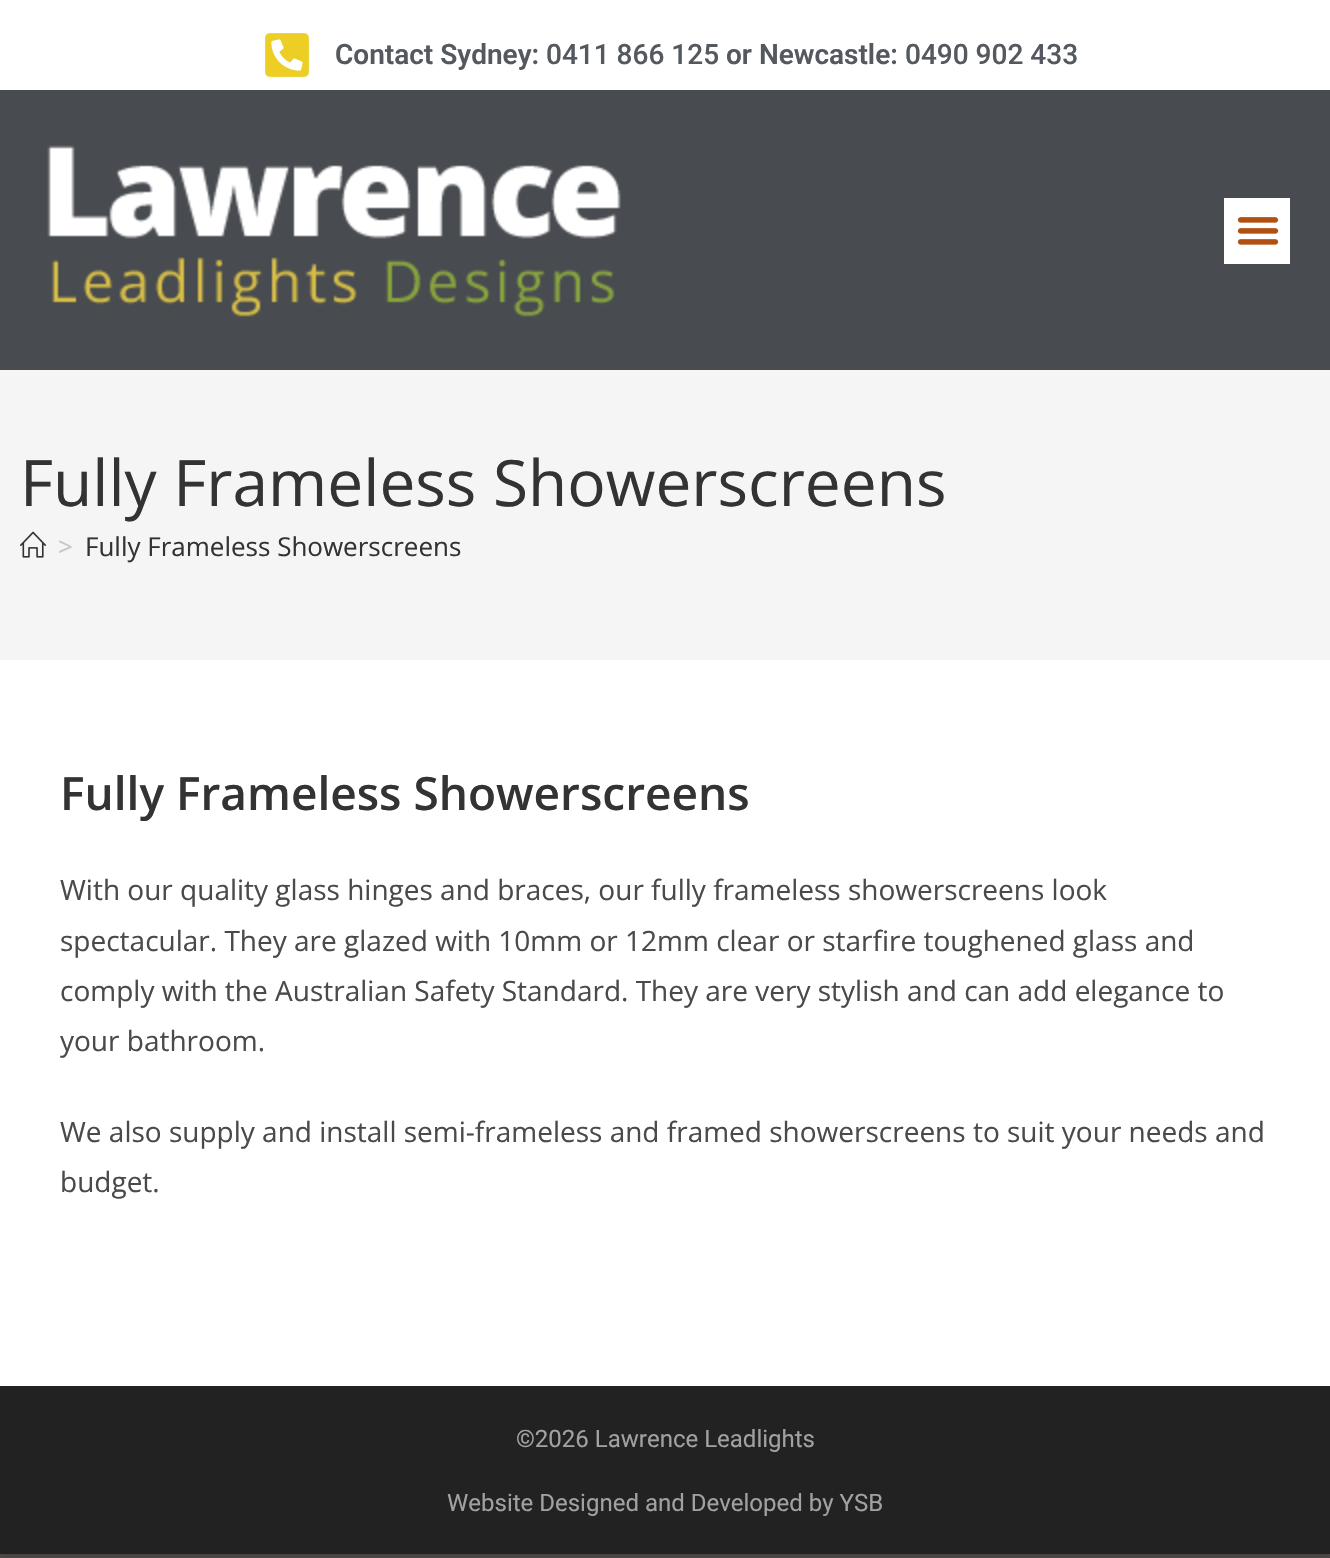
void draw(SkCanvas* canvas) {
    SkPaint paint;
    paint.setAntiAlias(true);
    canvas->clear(0xFF524A4A);
    paint.setColor(0x26000000);
    paint.setMaskFilter(SkMaskFilter::MakeBlur(kNormal_SkBlurStyle, 4));
    canvas->drawRect(SkRect::MakeXYWH(0, 2, 1330, 1554), paint);
    paint.setMaskFilter(nullptr);
    paint.setColor(0xFFFFFFFF);
    canvas->drawRect(SkRect::MakeXYWH(0, 0, 1330, 1386), paint);
    canvas->drawImageRect(SkImages::DeferredFromEncodedData(SkData::MakeFromFileName("img1.png")), SkRect::MakeXYWH(265, 33, 44, 44), SkSamplingOptions());
    SkFont font1(fontMgr->matchFamilyStyle("Roboto", SkFontStyle(600, SkFontStyle::kNormal_Width, SkFontStyle::kUpright_Slant)), 28);
    font1.setSubpixel(true);
    paint.setColor(0xFF54595F);
    canvas->drawString("Contact Sydney:", 335, 64, font1, paint);
    SkFont font2(fontMgr->matchFamilyStyle("Roboto", SkFontStyle(500, SkFontStyle::kNormal_Width, SkFontStyle::kUpright_Slant)), 28);
    font2.setSubpixel(true);
    canvas->drawString("0411 866 125", 546, 64, font2, paint);
    canvas->drawString("or Newcastle:", 726, 64, font1, paint);
    canvas->drawString("0490 902 433", 905, 64, font2, paint);
    paint.setColor(0xFF484B50);
    canvas->drawRect(SkRect::MakeXYWH(0, 90, 1330, 280), paint);
    canvas->drawImageRect(SkImages::DeferredFromEncodedData(SkData::MakeFromFileName("img2.png")), SkRect::MakeXYWH(47, 145, 574, 172), SkSamplingOptions());
    paint.setColor(0xFFFFFFFF);
    canvas->drawRect(SkRect::MakeXYWH(1224, 198, 66, 66), paint);
    canvas->drawImageRect(SkImages::DeferredFromEncodedData(SkData::MakeFromFileName("img3.png")), SkRect::MakeXYWH(1237, 217, 42, 28), SkSamplingOptions());
    paint.setColor(0xFFF5F5F5);
    canvas->drawRect(SkRect::MakeXYWH(0, 370, 1330, 290), paint);
    SkFont font3(fontMgr->matchFamilyStyle("Open Sans", SkFontStyle::Normal()), 64);
    font3.setSubpixel(true);
    paint.setColor(0xFF333333);
    canvas->drawString("Fully Frameless Showerscreens", 20, 506, font3, paint);
    canvas->drawImageRect(SkImages::DeferredFromEncodedData(SkData::MakeFromFileName("img4.png")), SkRect::MakeXYWH(20, 531, 26, 27), SkSamplingOptions());
    SkFont font4(fontMgr->matchFamilyStyle("Open Sans", SkFontStyle::Normal()), 26);
    font4.setSubpixel(true);
    paint.setColor(0xFFC6C6C6);
    canvas->drawString(">", 58, 556, font4, paint);
    paint.setColor(0xFF333333);
    canvas->drawString("Fully Frameless Showerscreens", 85, 556, font4, paint);
    SkFont font5(fontMgr->matchFamilyStyle("Open Sans", SkFontStyle(600, SkFontStyle::kNormal_Width, SkFontStyle::kUpright_Slant)), 46);
    font5.setSubpixel(true);
    canvas->drawString("Fully Frameless Showerscreens", 60, 810, font5, paint);
    SkFont font6(fontMgr->matchFamilyStyle("Open Sans", SkFontStyle::Normal()), 28);
    font6.setSubpixel(true);
    paint.setColor(0xFF4A4A4A);
    canvas->drawString("With our quality glass hinges and braces, our fully frameless showerscreens look", 60, 900, font6, paint);
    canvas->drawString("spectacular. They are glazed with 10mm or 12mm clear or starfire toughened glass and", 60, 951, font6, paint);
    canvas->drawString("comply with the Australian Safety Standard. They are very stylish and can add elegance to", 60, 1001, font6, paint);
    canvas->drawString("your bathroom.", 60, 1051, font6, paint);
    canvas->drawString("We also supply and install semi-frameless and framed showerscreens to suit your needs and", 60, 1142, font6, paint);
    canvas->drawString("budget.", 60, 1192, font6, paint);
    paint.setColor(0xFF222222);
    canvas->drawRect(SkRect::MakeXYWH(0, 1386, 1330, 168), paint);
    SkFont font7(fontMgr->matchFamilyStyle("Roboto", SkFontStyle::Normal()), 24);
    font7.setSubpixel(true);
    paint.setColor(0xFFA3A0A0);
    canvas->drawString("©2026 Lawrence Leadlights", 516, 1447, font7, paint);
    canvas->drawString("Website Designed and Developed by YSB", 447, 1511, font7, paint);
}
